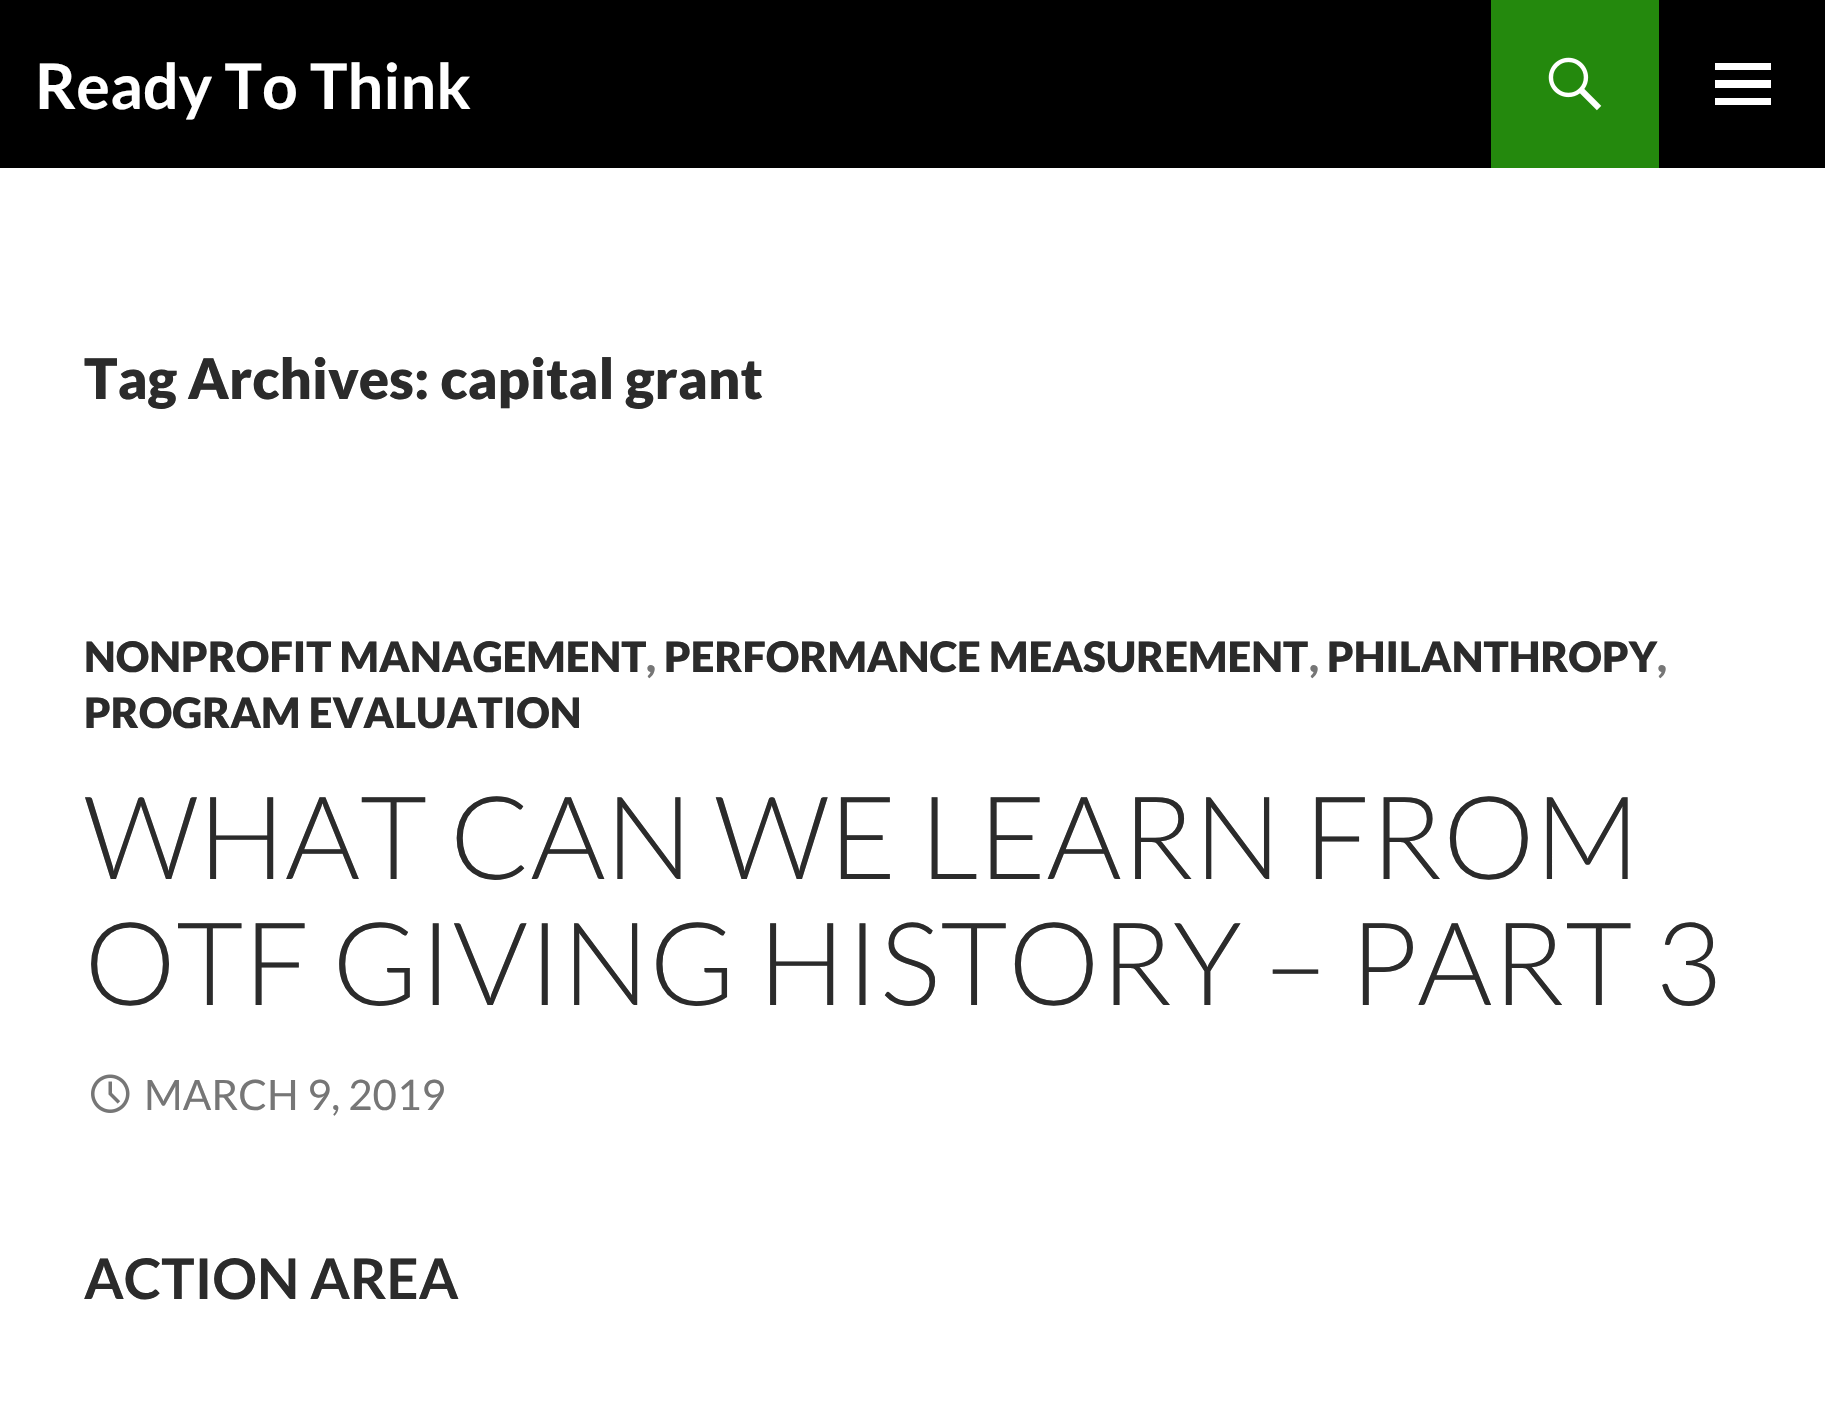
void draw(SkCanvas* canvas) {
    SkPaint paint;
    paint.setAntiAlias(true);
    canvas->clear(0xFFFFFFFF);
    paint.setColor(0xFF000000);
    canvas->drawRect(SkRect::MakeXYWH(0, 0, 1825, 168), paint);
    SkFont font1(fontMgr->matchFamilyStyle("Lato", SkFontStyle::Bold()), 63);
    font1.setSubpixel(true);
    paint.setColor(0xFFFFFFFF);
    canvas->drawString("Ready To Think", 35, 109, font1, paint);
    paint.setColor(0xFF24890D);
    canvas->drawRect(SkRect::MakeXYWH(1491, 0, 168, 168), paint);
    canvas->drawImageRect(SkImages::DeferredFromEncodedData(SkData::MakeFromFileName("img1.png")), SkRect::MakeXYWH(1548, 57, 54, 54), SkSamplingOptions());
    paint.setColor(0xFFFFFFFF);
    canvas->drawPath(SkPathBuilder().moveTo(1715, 105).lineTo(1715, 98).lineTo(1771, 98).lineTo(1771, 105).close().moveTo(1715, 88).lineTo(1715, 80).lineTo(1771, 80).lineTo(1771, 88).close().moveTo(1715, 70).lineTo(1715, 63).lineTo(1771, 63).lineTo(1771, 70).close().detach(), paint);
    SkFont font2(fontMgr->matchFamilyStyle("Lato", SkFontStyle(900, SkFontStyle::kNormal_Width, SkFontStyle::kUpright_Slant)), 56);
    font2.setSubpixel(true);
    paint.setColor(0xFF2B2B2B);
    canvas->drawString("Tag Archives: capital grant", 84, 399, font2, paint);
    SkFont font3(fontMgr->matchFamilyStyle("Lato", SkFontStyle(900, SkFontStyle::kNormal_Width, SkFontStyle::kUpright_Slant)), 42);
    font3.setSubpixel(true);
    canvas->drawString("NONPROFIT MANAGEMENT", 84, 672, font3, paint);
    paint.setColor(0xFF767676);
    canvas->drawString(",", 646, 672, font3, paint);
    paint.setColor(0xFF2B2B2B);
    canvas->drawString("PERFORMANCE MEASUREMENT", 664, 672, font3, paint);
    paint.setColor(0xFF767676);
    canvas->drawString(",", 1309, 672, font3, paint);
    paint.setColor(0xFF2B2B2B);
    canvas->drawString("PHILANTHROPY", 1327, 672, font3, paint);
    paint.setColor(0xFF767676);
    canvas->drawString(",", 1657, 672, font3, paint);
    paint.setColor(0xFF2B2B2B);
    canvas->drawString("PROGRAM EVALUATION", 84, 728, font3, paint);
    SkFont font4(fontMgr->matchFamilyStyle("Lato", SkFontStyle(300, SkFontStyle::kNormal_Width, SkFontStyle::kUpright_Slant)), 115.5f);
    font4.setSubpixel(true);
    canvas->drawString("WHAT CAN WE LEARN FROM", 84, 879, font4, paint);
    canvas->drawString("OTF GIVING HISTORY – PART 3", 84, 1005, font4, paint);
    canvas->drawImageRect(SkImages::DeferredFromEncodedData(SkData::MakeFromFileName("img2.png")), SkRect::MakeXYWH(91, 1074, 39, 39), SkSamplingOptions());
    SkFont font5(fontMgr->matchFamilyStyle("Lato", SkFontStyle::Normal()), 42);
    font5.setSubpixel(true);
    paint.setColor(0xFF767676);
    canvas->drawString("MARCH 9, 2019", 144, 1110, font5, paint);
    SkFont font6(fontMgr->matchFamilyStyle("Lato", SkFontStyle::Bold()), 56);
    font6.setSubpixel(true);
    paint.setColor(0xFF2B2B2B);
    canvas->drawString("ACTION AREA", 84, 1299, font6, paint);
}
